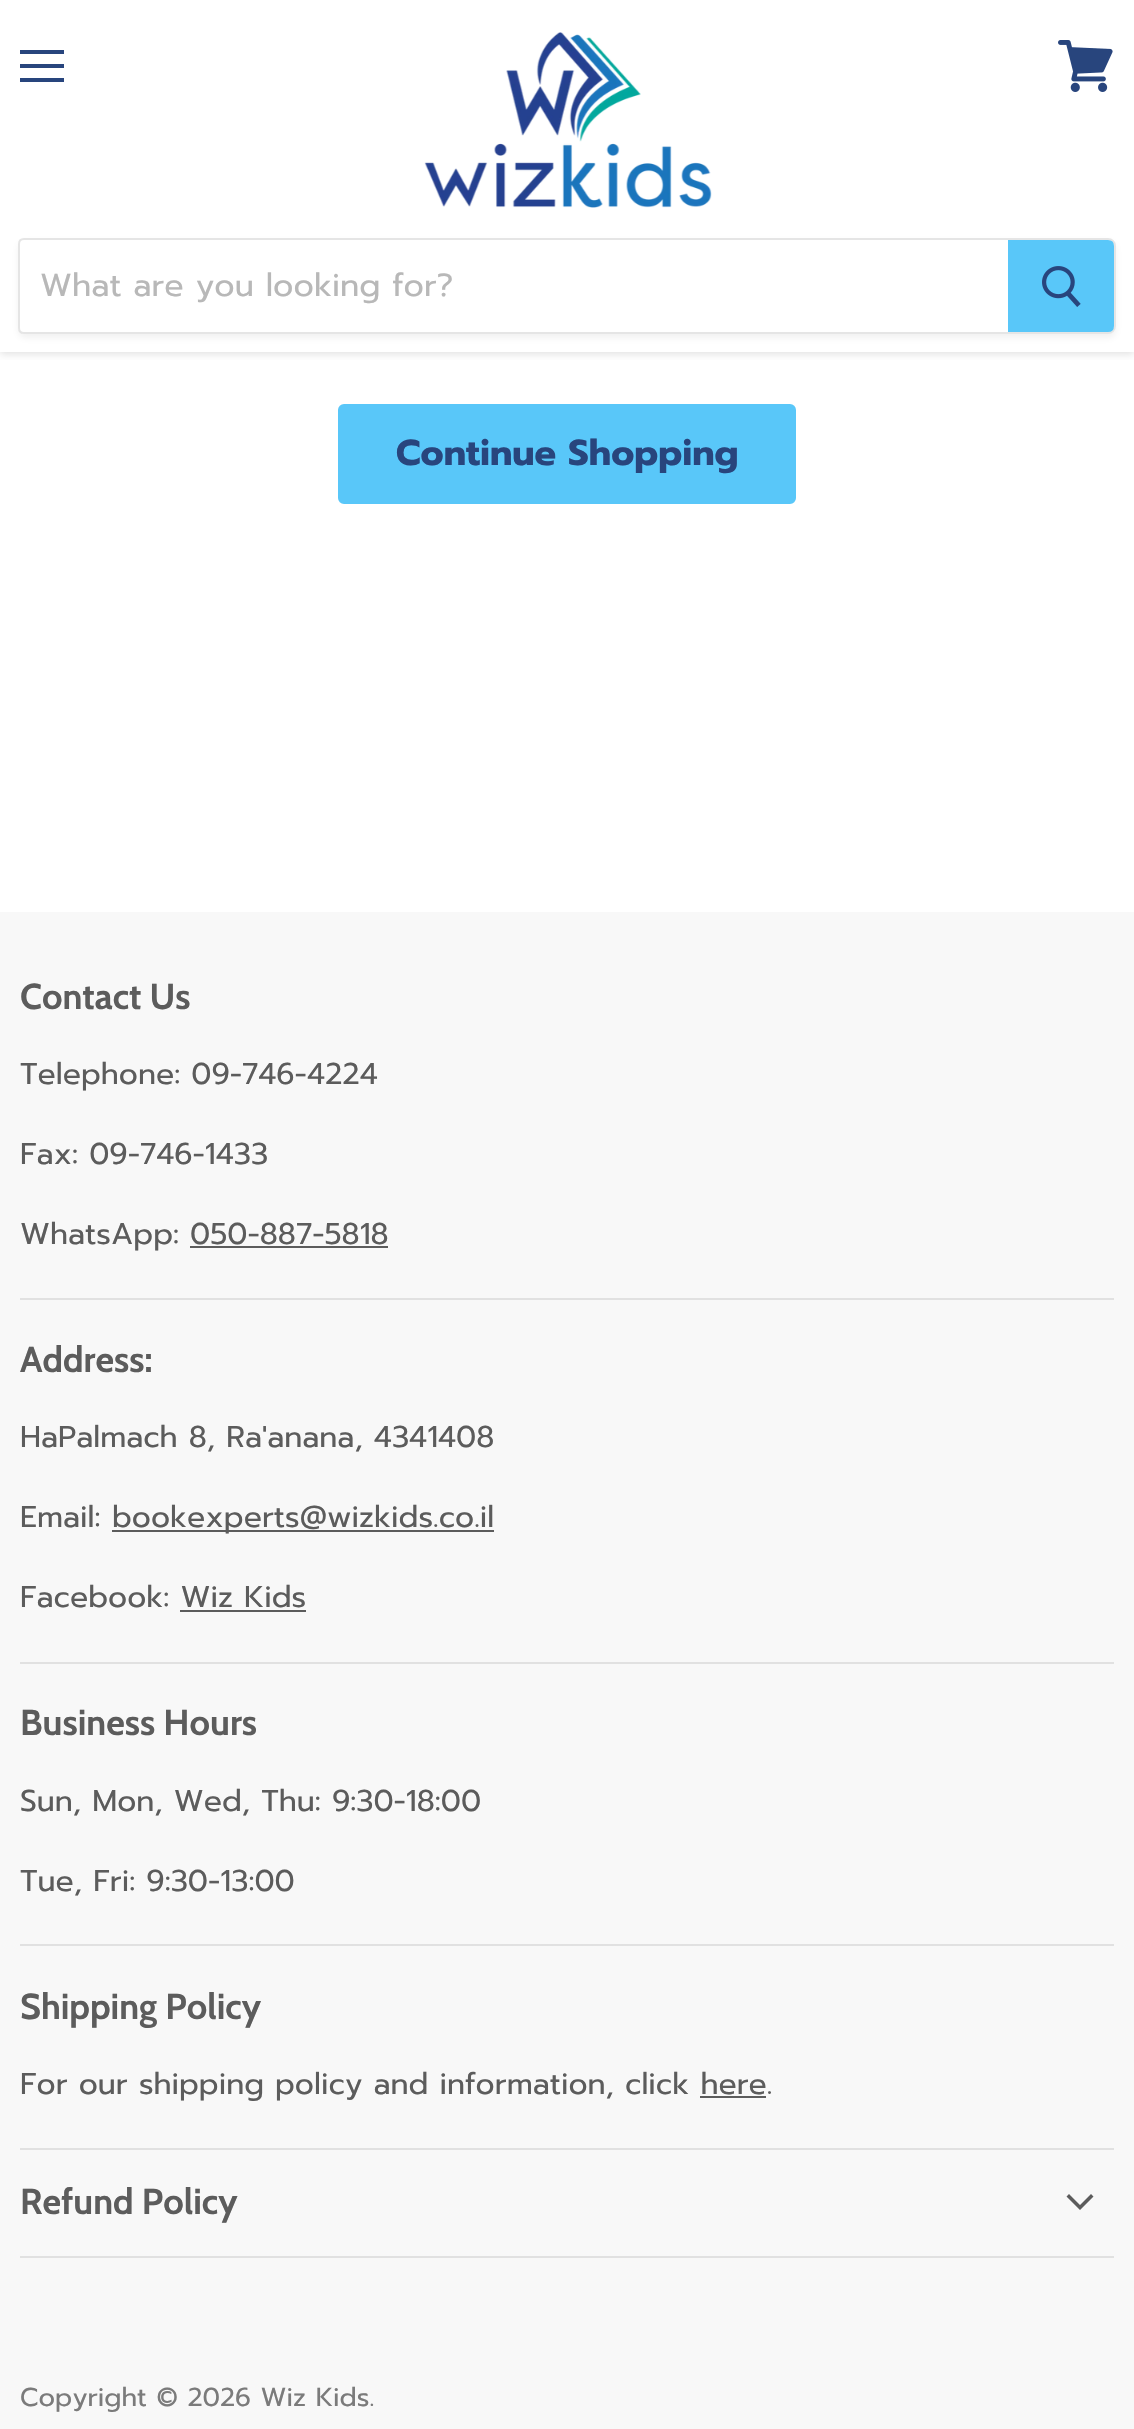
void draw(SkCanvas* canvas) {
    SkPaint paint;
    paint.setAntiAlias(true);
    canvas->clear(0xFFFFFFFF);
    canvas->save();
    canvas->clipRect(SkRect::MakeXYWH(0, 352, 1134, 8));
    paint.setColor(0x407F7F7F);
    paint.setMaskFilter(SkMaskFilter::MakeBlur(kNormal_SkBlurStyle, 4));
    canvas->drawRect(SkRect::MakeXYWH(0, 2, 1134, 352), paint);
    paint.setMaskFilter(nullptr);
    canvas->restore();
    paint.setColor(0xFF28457D);
    canvas->drawRect(SkRect::MakeXYWH(20, 50, 44, 4), paint);
    canvas->drawRect(SkRect::MakeXYWH(20, 64, 44, 4), paint);
    canvas->drawRect(SkRect::MakeXYWH(20, 78, 44, 4), paint);
    canvas->drawImageRect(SkImages::DeferredFromEncodedData(SkData::MakeFromFileName("img1.png")), SkRect::MakeXYWH(1058, 40, 55, 52), SkSamplingOptions());
    canvas->drawImageRect(SkImages::DeferredFromEncodedData(SkData::MakeFromFileName("img2.png")), SkRect::MakeXYWH(424, 32, 288, 176), SkSamplingOptions());
    canvas->save();
    canvas->clipPath(SkPathBuilder(SkPathFillType::kEvenOdd).moveTo(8, 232).lineTo(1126, 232).lineTo(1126, 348).lineTo(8, 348).close().moveTo(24, 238).lineTo(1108, 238).cubicTo(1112.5f, 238, 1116, 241.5f, 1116, 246).lineTo(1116, 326).cubicTo(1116, 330.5f, 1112.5f, 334, 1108, 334).lineTo(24, 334).cubicTo(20.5f, 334, 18, 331.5f, 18, 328).lineTo(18, 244).cubicTo(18, 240.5f, 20.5f, 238, 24, 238).close().detach(), true);
    paint.setColor(0x1C7F7F7F);
    paint.setMaskFilter(SkMaskFilter::MakeBlur(kNormal_SkBlurStyle, 3));
    canvas->drawRoundRect(SkRect::MakeXYWH(18, 242, 1098, 96), 8, 8, paint);
    paint.setMaskFilter(nullptr);
    canvas->restore();
    paint.setStyle(SkPaint::kStroke_Style);
    paint.setStrokeWidth(2);
    paint.setColor(0x337F7F7F);
    canvas->drawPath(SkPathBuilder().moveTo(24, 239).lineTo(1108, 239).cubicTo(1112, 239, 1115, 242, 1115, 246).lineTo(1115, 326).cubicTo(1115, 330, 1112, 333, 1108, 333).lineTo(24, 333).cubicTo(21, 333, 19, 331, 19, 328).lineTo(19, 244).cubicTo(19, 241, 21, 239, 24, 239).close().detach(), paint);
    SkFont font1(fontMgr->matchFamilyStyle("Prompt", SkFontStyle::Normal()), 32);
    font1.setSubpixel(true);
    paint.setStyle(SkPaint::kFill_Style);
    paint.setColor(0xFFB8B8B8);
    canvas->drawString("What are you looking for?", 40, 296, font1, paint);
    paint.setColor(0xFF59C7F9);
    canvas->drawPath(SkPathBuilder().moveTo(1009, 241).lineTo(1108, 241).cubicTo(1111, 241, 1113, 243, 1113, 246).lineTo(1113, 326).cubicTo(1113, 329, 1111, 331, 1108, 331).lineTo(1009, 331).close().detach(), paint);
    paint.setStyle(SkPaint::kStroke_Style);
    canvas->drawPath(SkPathBuilder().moveTo(1009, 241).lineTo(1108, 241).cubicTo(1111, 241, 1113, 243, 1113, 246).lineTo(1113, 326).cubicTo(1113, 329, 1111, 331, 1108, 331).lineTo(1009, 331).close().detach(), paint);
    canvas->drawImageRect(SkImages::DeferredFromEncodedData(SkData::MakeFromFileName("img3.png")), SkRect::MakeXYWH(1042, 266, 39, 41), SkSamplingOptions());
    paint.setStyle(SkPaint::kFill_Style);
    canvas->drawRoundRect(SkRect::MakeXYWH(339, 405, 456, 98), 5, 5, paint);
    paint.setStyle(SkPaint::kStroke_Style);
    canvas->drawRoundRect(SkRect::MakeXYWH(339, 405, 456, 98), 5, 5, paint);
    SkFont font2(fontMgr->matchFamilyStyle("Prompt", SkFontStyle::Bold()), 36);
    font2.setSubpixel(true);
    paint.setStyle(SkPaint::kFill_Style);
    paint.setColor(0xFF28457D);
    canvas->drawString("Continue Shopping", 396, 465, font2, paint);
    paint.setColor(0xFFF8F8F8);
    canvas->drawRect(SkRect::MakeXYWH(0, 912, 1134, 1517), paint);
    paint.setColor(0xFFE1E1E1);
    canvas->drawRect(SkRect::MakeXYWH(20, 1298, 1094, 2), paint);
    SkFont font3(fontMgr->matchFamilyStyle("Cabin", SkFontStyle::Bold()), 36);
    font3.setSubpixel(true);
    paint.setColor(0xFF5C5C5C);
    canvas->drawString("Contact Us", 20, 1009, font3, paint);
    SkFont font4(fontMgr->matchFamilyStyle("Prompt", SkFontStyle::Normal()), 30);
    font4.setSubpixel(true);
    canvas->drawString("Telephone: 09-746-4224", 20, 1084, font4, paint);
    canvas->drawString("Fax: 09-746-1433", 20, 1164, font4, paint);
    canvas->drawString("WhatsApp: 050-887-5818", 20, 1244, font4, paint);
    canvas->drawRect(SkRect::MakeXYWH(190, 1246, 198, 2), paint);
    paint.setColor(0xFFE1E1E1);
    canvas->drawRect(SkRect::MakeXYWH(20, 1662, 1094, 2), paint);
    paint.setColor(0xFF5C5C5C);
    canvas->drawString("Address:", 20, 1372, font3, paint);
    canvas->drawString("HaPalmach 8, Ra'anana, 4341408", 20, 1447, font4, paint);
    canvas->drawString("Email:", 20, 1527, font4, paint);
    canvas->drawRect(SkRect::MakeXYWH(112, 1530, 382, 2), paint);
    canvas->drawString("bookexperts@wizkids.co.il", 112, 1527, font4, paint);
    canvas->drawString("Facebook: Wiz Kids", 20, 1607, font4, paint);
    canvas->drawRect(SkRect::MakeXYWH(180, 1610, 126, 2), paint);
    paint.setColor(0xFFE1E1E1);
    canvas->drawRect(SkRect::MakeXYWH(20, 1944, 1094, 2), paint);
    paint.setColor(0xFF5C5C5C);
    canvas->drawString("Business Hours", 20, 1735, font3, paint);
    canvas->drawString("Sun, Mon, Wed, Thu: 9:30-18:00", 20, 1811, font4, paint);
    canvas->drawString("Tue, Fri: 9:30-13:00", 20, 1891, font4, paint);
    paint.setColor(0xFFE1E1E1);
    canvas->drawRect(SkRect::MakeXYWH(20, 2148, 1094, 2), paint);
    paint.setColor(0xFF5C5C5C);
    canvas->drawString("Shipping Policy", 20, 2019, font3, paint);
    canvas->drawString("For our shipping policy and information, click here.", 20, 2094, font4, paint);
    canvas->drawRect(SkRect::MakeXYWH(700, 2096, 66, 2), paint);
    paint.setColor(0xFFE1E1E1);
    canvas->drawRect(SkRect::MakeXYWH(20, 2256, 1094, 2), paint);
    paint.setColor(0xFF5C5C5C);
    canvas->drawString("Refund Policy", 20, 2214, font3, paint);
    canvas->drawPath(SkPathBuilder(SkPathFillType::kEvenOdd).moveTo(1080, 2210).lineTo(1093.5f, 2196.5f).lineTo(1091, 2194).lineTo(1080, 2205).close().moveTo(1080, 2205).lineTo(1069, 2194).lineTo(1066.5f, 2196.5f).lineTo(1080, 2210).close().detach(), paint);
    SkFont font5(fontMgr->matchFamilyStyle("Prompt", SkFontStyle::Normal()), 26);
    font5.setSubpixel(true);
    paint.setColor(0xFF7B7B7B);
    canvas->drawString("Copyright © 2026 Wiz Kids.", 20, 2406, font5, paint);
}
